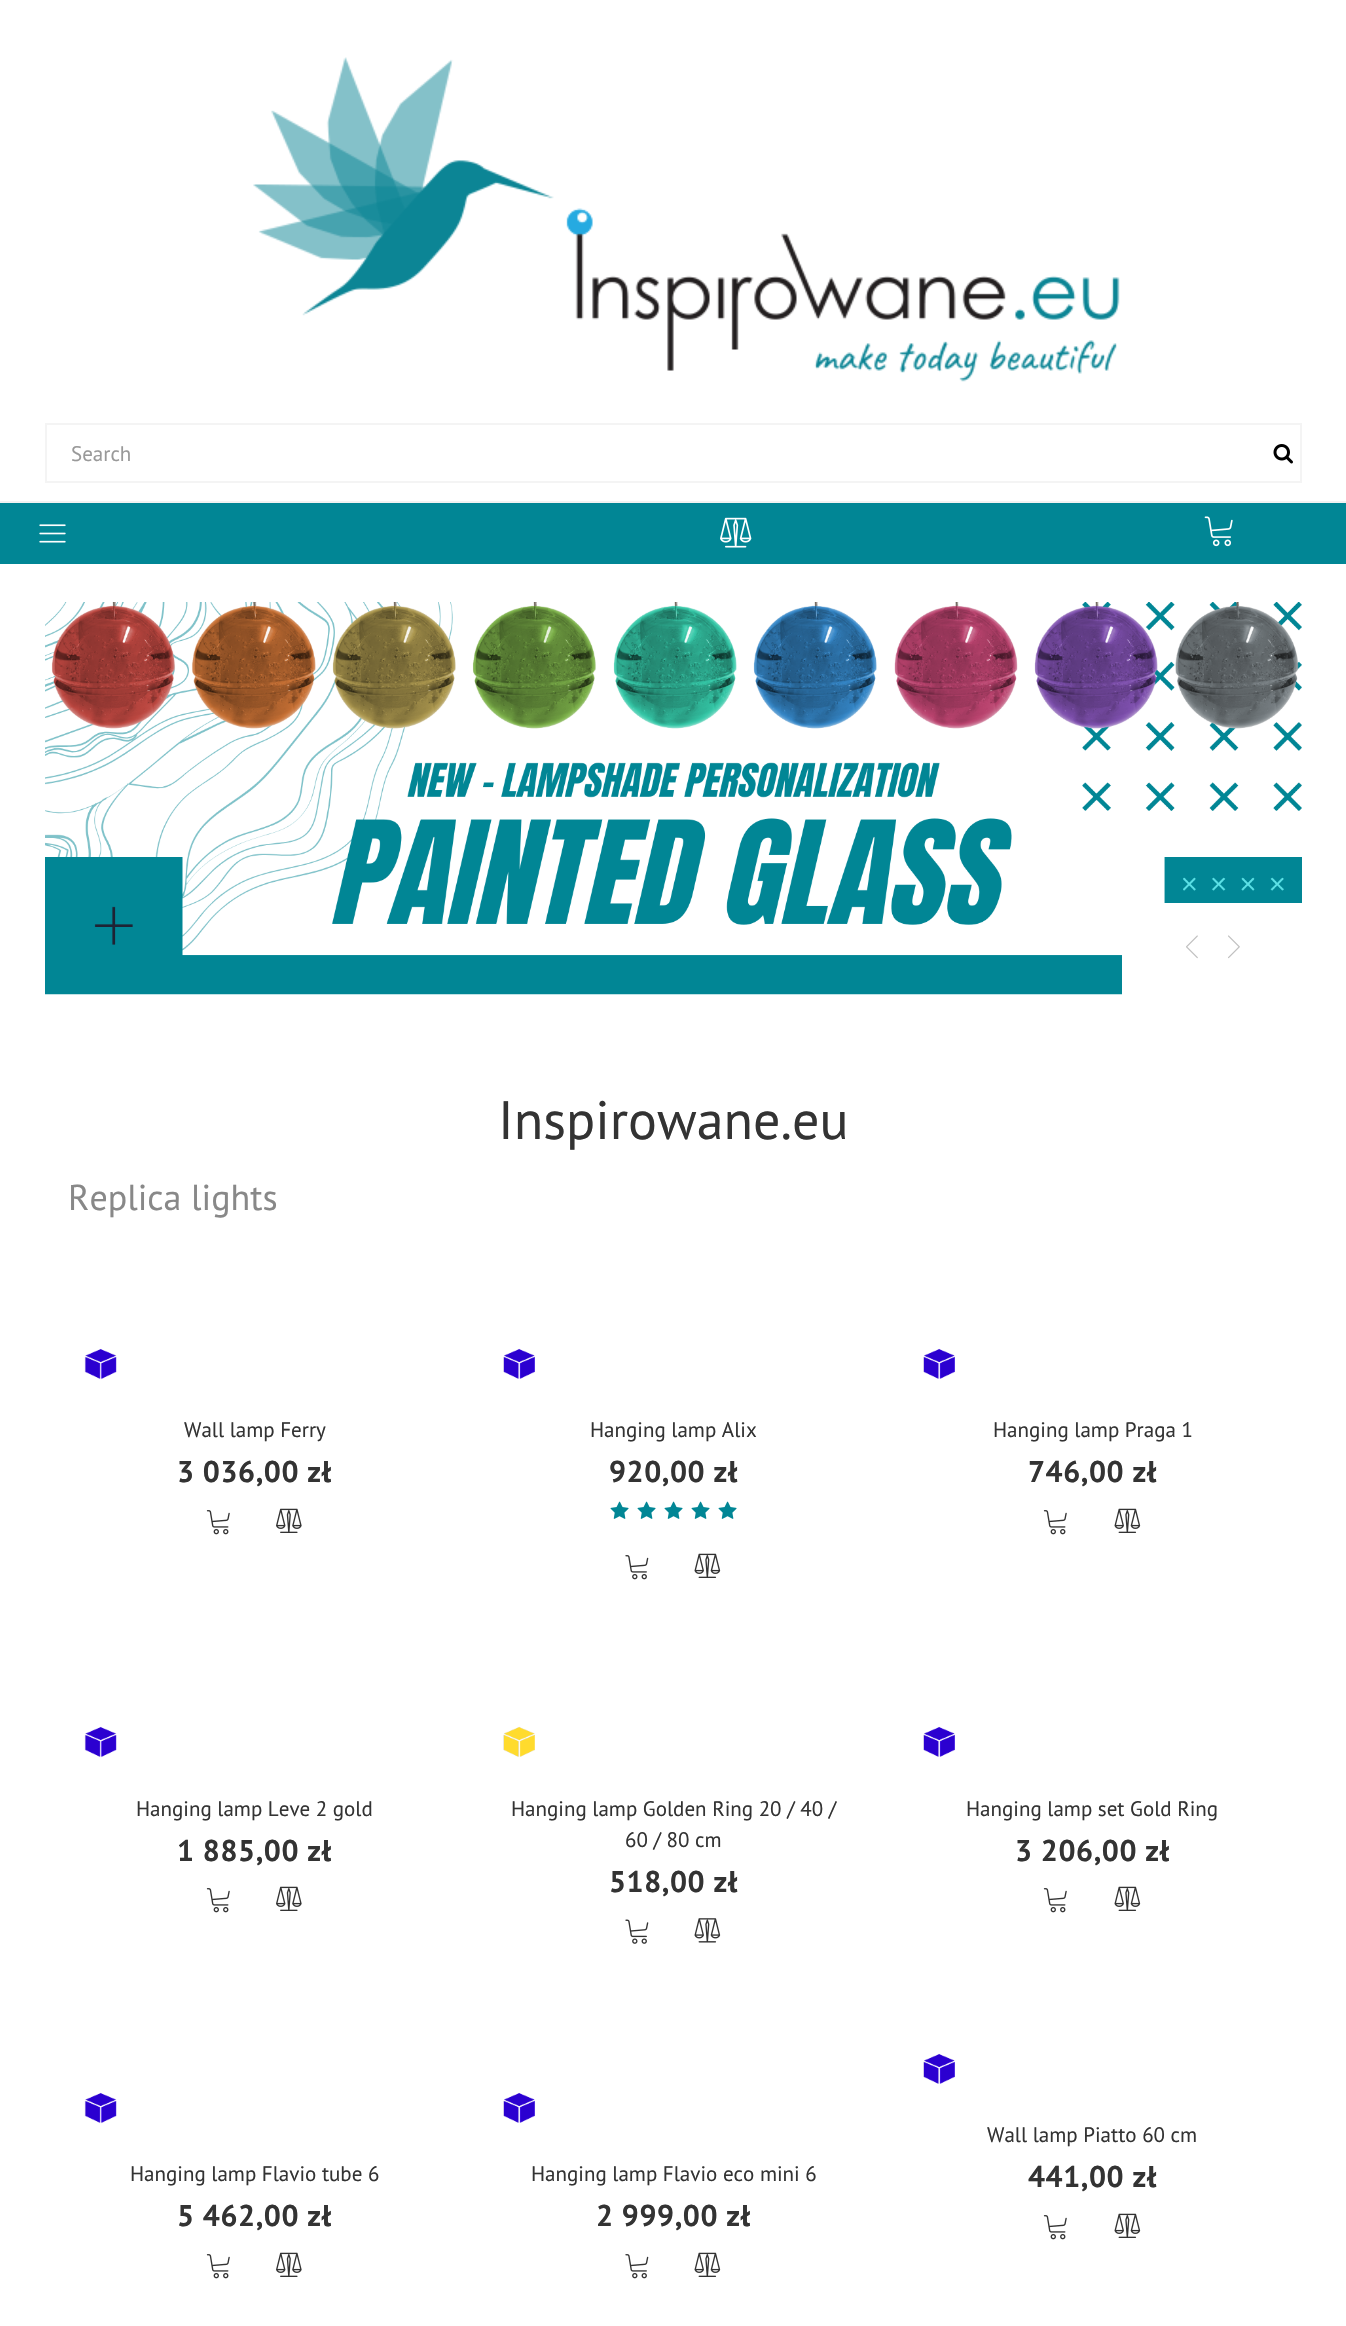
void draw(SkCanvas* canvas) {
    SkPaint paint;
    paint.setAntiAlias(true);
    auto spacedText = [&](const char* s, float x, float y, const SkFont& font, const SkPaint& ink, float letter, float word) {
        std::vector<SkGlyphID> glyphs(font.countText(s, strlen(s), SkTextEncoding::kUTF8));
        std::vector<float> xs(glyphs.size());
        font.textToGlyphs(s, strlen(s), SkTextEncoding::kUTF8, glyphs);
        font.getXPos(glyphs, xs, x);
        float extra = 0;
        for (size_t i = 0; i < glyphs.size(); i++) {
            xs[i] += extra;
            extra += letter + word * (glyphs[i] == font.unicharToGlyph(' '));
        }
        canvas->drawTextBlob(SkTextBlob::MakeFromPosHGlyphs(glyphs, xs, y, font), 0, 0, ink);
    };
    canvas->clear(0xFFFFFFFF);
    canvas->drawImageRect(SkImages::DeferredFromEncodedData(SkData::MakeFromFileName("img1.png")), SkRect::MakeXYWH(253, 57, 867, 325), SkSamplingOptions());
    paint.setStyle(SkPaint::kStroke_Style);
    paint.setStrokeWidth(2);
    paint.setColor(0xFFF4F4F4);
    canvas->drawRect(SkRect::MakeXYWH(46, 424, 1255, 58), paint);
    SkFont font1(fontMgr->matchFamilyStyle("PT Sans", SkFontStyle::Normal()), 21);
    font1.setSubpixel(true);
    paint.setStyle(SkPaint::kFill_Style);
    paint.setColor(0xFF999999);
    canvas->drawString("Search", 71, 461, font1, paint);
    canvas->drawImageRect(SkImages::DeferredFromEncodedData(SkData::MakeFromFileName("img2.png")), SkRect::MakeXYWH(1273, 444, 20, 20), SkSamplingOptions());
    paint.setColor(0xFF018695);
    canvas->drawRect(SkRect::MakeXYWH(0, 503, 1346, 61), paint);
    canvas->drawImageRect(SkImages::DeferredFromEncodedData(SkData::MakeFromFileName("img3.png")), SkRect::MakeXYWH(1204, 516, 29, 31), SkSamplingOptions());
    paint.setColor(0xFFF2F2F2);
    canvas->drawRect(SkRect::MakeXYWH(0, 501, 1346, 2), paint);
    canvas->drawImageRect(SkImages::DeferredFromEncodedData(SkData::MakeFromFileName("img4.png")), SkRect::MakeXYWH(39, 524, 27, 19), SkSamplingOptions());
    canvas->drawImageRect(SkImages::DeferredFromEncodedData(SkData::MakeFromFileName("img5.png")), SkRect::MakeXYWH(720, 517, 32, 31), SkSamplingOptions());
    canvas->drawImageRect(SkImages::DeferredFromEncodedData(SkData::MakeFromFileName("img6.png")), SkRect::MakeXYWH(45, 602, 1257, 393), SkSamplingOptions());
    paint.setColor(0xFFFFFFFF);
    canvas->drawRect(SkRect::MakeXYWH(1122, 903, 180, 92), paint);
    canvas->drawImageRect(SkImages::DeferredFromEncodedData(SkData::MakeFromFileName("img7.png")), SkRect::MakeXYWH(1186, 935, 12, 24), SkSamplingOptions());
    canvas->drawImageRect(SkImages::DeferredFromEncodedData(SkData::MakeFromFileName("img8.png")), SkRect::MakeXYWH(1228, 935, 12, 24), SkSamplingOptions());
    SkFont font2(fontMgr->matchFamilyStyle("PT Sans", SkFontStyle::Normal()), 54);
    font2.setSubpixel(true);
    paint.setColor(0xFF333333);
    canvas->drawString("Inspirowane.eu", 498, 1139, font2, paint);
    SkFont font3(fontMgr->matchFamilyStyle("PT Sans", SkFontStyle::Normal()), 36);
    font3.setSubpixel(true);
    paint.setColor(0xFF888888);
    canvas->drawString("Replica lights", 68, 1210, font3, paint);
    canvas->drawImageRect(SkImages::DeferredFromEncodedData(SkData::MakeFromFileName("img9.png")), SkRect::MakeXYWH(84, 1348, 33, 32), SkSamplingOptions());
    paint.setColor(0xFF333333);
    canvas->drawString("Wall lamp Ferry", 184, 1437, font1, paint);
    SkFont font4(fontMgr->matchFamilyStyle("PT Sans", SkFontStyle::Bold()), 30);
    font4.setSubpixel(true);
    spacedText("3 036,00 zł", 177, 1482, font4, paint, 0.6f, 0);
    canvas->drawImageRect(SkImages::DeferredFromEncodedData(SkData::MakeFromFileName("img10.png")), SkRect::MakeXYWH(206, 1510, 24, 25), SkSamplingOptions());
    canvas->drawImageRect(SkImages::DeferredFromEncodedData(SkData::MakeFromFileName("img11.png")), SkRect::MakeXYWH(276, 1508, 26, 25), SkSamplingOptions());
    canvas->drawImageRect(SkImages::DeferredFromEncodedData(SkData::MakeFromFileName("img12.png")), SkRect::MakeXYWH(503, 1348, 32, 31), SkSamplingOptions());
    canvas->drawString("Hanging lamp Alix", 590, 1437, font1, paint);
    spacedText("920,00 zł", 609, 1482, font4, paint, 0.6f, 0);
    canvas->drawImageRect(SkImages::DeferredFromEncodedData(SkData::MakeFromFileName("img13.png")), SkRect::MakeXYWH(610, 1501, 19, 18), SkSamplingOptions());
    canvas->drawImageRect(SkImages::DeferredFromEncodedData(SkData::MakeFromFileName("img13.png")), SkRect::MakeXYWH(637, 1501, 19, 18), SkSamplingOptions());
    canvas->drawImageRect(SkImages::DeferredFromEncodedData(SkData::MakeFromFileName("img13.png")), SkRect::MakeXYWH(664, 1501, 19, 18), SkSamplingOptions());
    canvas->drawImageRect(SkImages::DeferredFromEncodedData(SkData::MakeFromFileName("img13.png")), SkRect::MakeXYWH(691, 1501, 19, 18), SkSamplingOptions());
    canvas->drawImageRect(SkImages::DeferredFromEncodedData(SkData::MakeFromFileName("img13.png")), SkRect::MakeXYWH(718, 1501, 19, 18), SkSamplingOptions());
    canvas->drawImageRect(SkImages::DeferredFromEncodedData(SkData::MakeFromFileName("img14.png")), SkRect::MakeXYWH(625, 1555, 24, 25), SkSamplingOptions());
    canvas->drawImageRect(SkImages::DeferredFromEncodedData(SkData::MakeFromFileName("img15.png")), SkRect::MakeXYWH(694, 1553, 27, 25), SkSamplingOptions());
    canvas->drawImageRect(SkImages::DeferredFromEncodedData(SkData::MakeFromFileName("img16.png")), SkRect::MakeXYWH(923, 1348, 32, 31), SkSamplingOptions());
    canvas->drawString("Hanging lamp Praga 1", 993, 1437, font1, paint);
    spacedText("746,00 zł", 1028, 1482, font4, paint, 0.6f, 0);
    canvas->drawImageRect(SkImages::DeferredFromEncodedData(SkData::MakeFromFileName("img10.png")), SkRect::MakeXYWH(1043, 1510, 24, 25), SkSamplingOptions());
    canvas->drawImageRect(SkImages::DeferredFromEncodedData(SkData::MakeFromFileName("img15.png")), SkRect::MakeXYWH(1114, 1508, 27, 25), SkSamplingOptions());
    canvas->drawImageRect(SkImages::DeferredFromEncodedData(SkData::MakeFromFileName("img9.png")), SkRect::MakeXYWH(84, 1726, 33, 32), SkSamplingOptions());
    canvas->drawString("Hanging lamp Leve 2 gold", 136, 1816, font1, paint);
    spacedText("1 885,00 zł", 177, 1861, font4, paint, 0.6f, 0);
    canvas->drawImageRect(SkImages::DeferredFromEncodedData(SkData::MakeFromFileName("img10.png")), SkRect::MakeXYWH(206, 1888, 24, 25), SkSamplingOptions());
    canvas->drawImageRect(SkImages::DeferredFromEncodedData(SkData::MakeFromFileName("img11.png")), SkRect::MakeXYWH(276, 1886, 26, 25), SkSamplingOptions());
    canvas->drawImageRect(SkImages::DeferredFromEncodedData(SkData::MakeFromFileName("img17.png")), SkRect::MakeXYWH(503, 1726, 32, 31), SkSamplingOptions());
    canvas->drawString("Hanging lamp Golden Ring 20 / 40 /", 511, 1816, font1, paint);
    canvas->drawString("60 / 80 cm", 625, 1847, font1, paint);
    spacedText("518,00 zł", 609, 1892, font4, paint, 0.6f, 0);
    canvas->drawImageRect(SkImages::DeferredFromEncodedData(SkData::MakeFromFileName("img18.png")), SkRect::MakeXYWH(625, 1919, 24, 25), SkSamplingOptions());
    canvas->drawImageRect(SkImages::DeferredFromEncodedData(SkData::MakeFromFileName("img19.png")), SkRect::MakeXYWH(694, 1918, 27, 25), SkSamplingOptions());
    canvas->drawImageRect(SkImages::DeferredFromEncodedData(SkData::MakeFromFileName("img16.png")), SkRect::MakeXYWH(923, 1726, 32, 31), SkSamplingOptions());
    canvas->drawString("Hanging lamp set Gold Ring", 966, 1816, font1, paint);
    spacedText("3 206,00 zł", 1015, 1861, font4, paint, 0.6f, 0);
    canvas->drawImageRect(SkImages::DeferredFromEncodedData(SkData::MakeFromFileName("img10.png")), SkRect::MakeXYWH(1043, 1888, 24, 25), SkSamplingOptions());
    canvas->drawImageRect(SkImages::DeferredFromEncodedData(SkData::MakeFromFileName("img15.png")), SkRect::MakeXYWH(1114, 1886, 27, 25), SkSamplingOptions());
    canvas->drawImageRect(SkImages::DeferredFromEncodedData(SkData::MakeFromFileName("img16.png")), SkRect::MakeXYWH(923, 2053, 32, 31), SkSamplingOptions());
    canvas->drawString("Wall lamp Piatto 60 cm", 987, 2142, font1, paint);
    spacedText("441,00 zł", 1028, 2187, font4, paint, 0.6f, 0);
    canvas->drawImageRect(SkImages::DeferredFromEncodedData(SkData::MakeFromFileName("img10.png")), SkRect::MakeXYWH(1043, 2215, 24, 25), SkSamplingOptions());
    canvas->drawImageRect(SkImages::DeferredFromEncodedData(SkData::MakeFromFileName("img15.png")), SkRect::MakeXYWH(1114, 2213, 27, 25), SkSamplingOptions());
    canvas->drawImageRect(SkImages::DeferredFromEncodedData(SkData::MakeFromFileName("img9.png")), SkRect::MakeXYWH(84, 2092, 33, 32), SkSamplingOptions());
    canvas->drawString("Hanging lamp Flavio tube 6", 130, 2181, font1, paint);
    spacedText("5 462,00 zł", 177, 2226, font4, paint, 0.6f, 0);
    canvas->drawImageRect(SkImages::DeferredFromEncodedData(SkData::MakeFromFileName("img10.png")), SkRect::MakeXYWH(206, 2254, 24, 25), SkSamplingOptions());
    canvas->drawImageRect(SkImages::DeferredFromEncodedData(SkData::MakeFromFileName("img11.png")), SkRect::MakeXYWH(276, 2252, 26, 25), SkSamplingOptions());
    canvas->drawImageRect(SkImages::DeferredFromEncodedData(SkData::MakeFromFileName("img12.png")), SkRect::MakeXYWH(503, 2092, 32, 31), SkSamplingOptions());
    canvas->drawString("Hanging lamp Flavio eco mini 6", 531, 2181, font1, paint);
    spacedText("2 999,00 zł", 596, 2226, font4, paint, 0.6f, 0);
    canvas->drawImageRect(SkImages::DeferredFromEncodedData(SkData::MakeFromFileName("img14.png")), SkRect::MakeXYWH(625, 2254, 24, 25), SkSamplingOptions());
    canvas->drawImageRect(SkImages::DeferredFromEncodedData(SkData::MakeFromFileName("img15.png")), SkRect::MakeXYWH(694, 2252, 27, 25), SkSamplingOptions());
}
